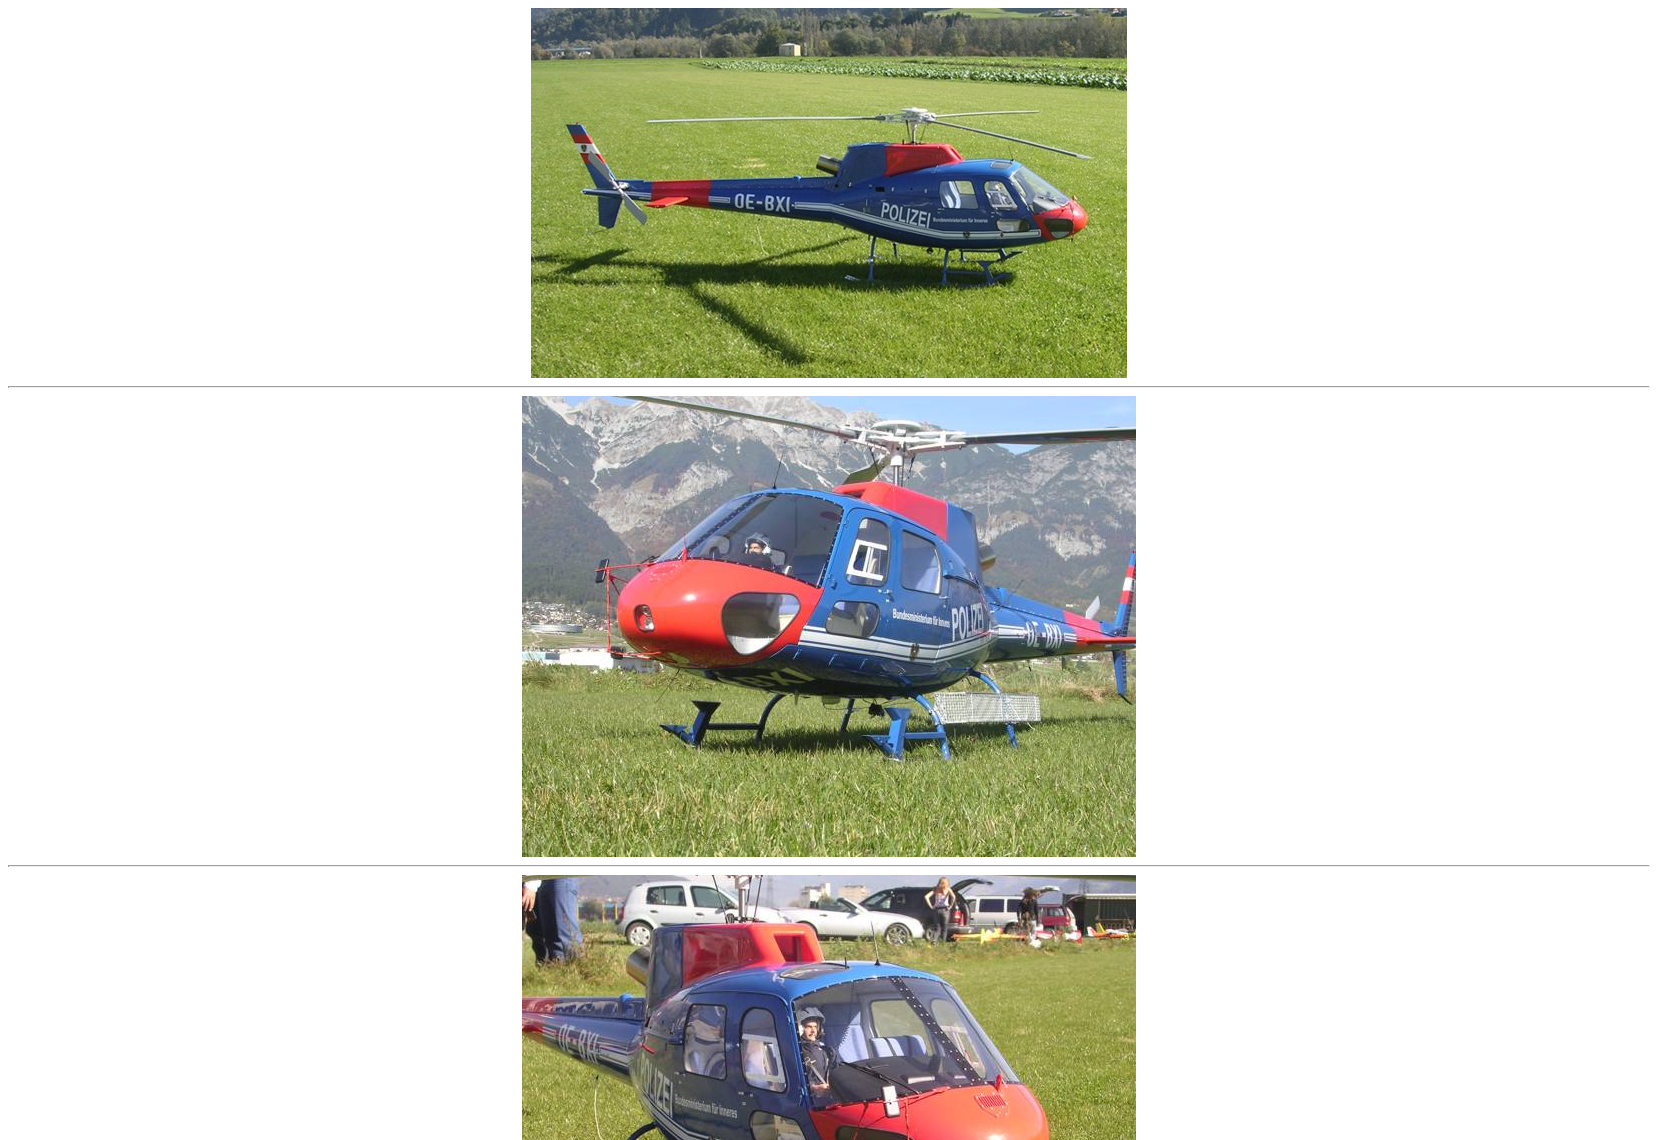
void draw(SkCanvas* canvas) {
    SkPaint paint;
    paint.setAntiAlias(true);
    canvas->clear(0xFFFFFFFF);
    canvas->drawImageRect(SkImages::DeferredFromEncodedData(SkData::MakeFromFileName("img1.png")), SkRect::MakeXYWH(531, 8, 596, 370), SkSamplingOptions());
    paint.setColor(0xFF9F9F9F);
    canvas->drawRect(SkRect::MakeXYWH(8, 386, 1642, 1), paint);
    paint.setColor(0xFFEEEEEE);
    canvas->drawRect(SkRect::MakeXYWH(1649, 386, 1, 2), paint);
    canvas->drawRect(SkRect::MakeXYWH(8, 387, 1642, 1), paint);
    paint.setColor(0xFF9F9F9F);
    canvas->drawRect(SkRect::MakeXYWH(8, 386, 1, 2), paint);
    canvas->drawImageRect(SkImages::DeferredFromEncodedData(SkData::MakeFromFileName("img2.png")), SkRect::MakeXYWH(522, 396, 614, 461), SkSamplingOptions());
    canvas->drawRect(SkRect::MakeXYWH(8, 865, 1642, 1), paint);
    paint.setColor(0xFFEEEEEE);
    canvas->drawRect(SkRect::MakeXYWH(1649, 865, 1, 2), paint);
    canvas->drawRect(SkRect::MakeXYWH(8, 866, 1642, 1), paint);
    paint.setColor(0xFF9F9F9F);
    canvas->drawRect(SkRect::MakeXYWH(8, 865, 1, 2), paint);
    canvas->drawImageRect(SkImages::DeferredFromEncodedData(SkData::MakeFromFileName("img3.png")), SkRect::MakeXYWH(522, 875, 614, 265), SkSamplingOptions());
}
